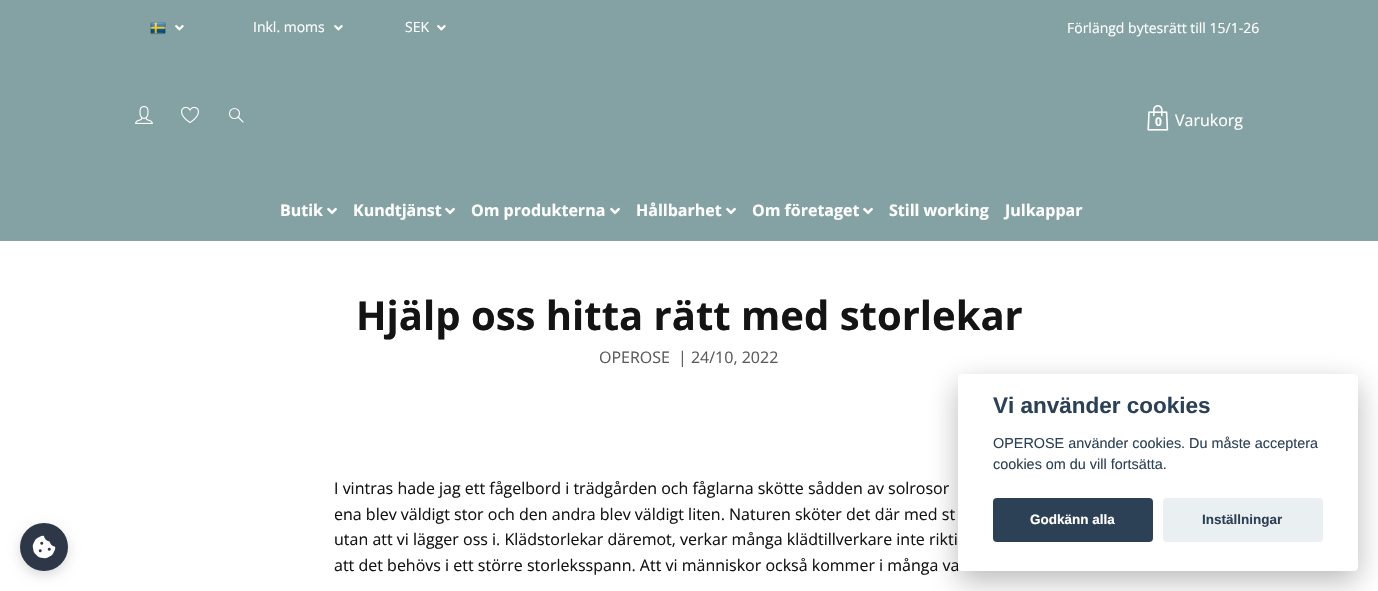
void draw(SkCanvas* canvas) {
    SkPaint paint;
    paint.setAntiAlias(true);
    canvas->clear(0xFFFFFFFF);
    paint.setColor(0xFF84A2A4);
    canvas->drawRect(SkRect::MakeXYWH(0, 0, 1378, 241), paint);
    canvas->drawImageRect(SkImages::DeferredFromEncodedData(SkData::MakeFromFileName("img1.png")), SkRect::MakeXYWH(150, 22, 16, 13), SkSamplingOptions());
    canvas->drawImageRect(SkImages::DeferredFromEncodedData(SkData::MakeFromFileName("img2.png")), SkRect::MakeXYWH(175, 25, 9, 6), SkSamplingOptions());
    SkFont font1(fontMgr->matchFamilyStyle("Open Sans", SkFontStyle::Normal()), 14);
    font1.setSubpixel(true);
    paint.setColor(0xFFFFFFFF);
    canvas->drawString("Inkl. moms", 253, 32, font1, paint);
    canvas->drawImageRect(SkImages::DeferredFromEncodedData(SkData::MakeFromFileName("img2.png")), SkRect::MakeXYWH(334, 25, 9, 6), SkSamplingOptions());
    canvas->drawString("SEK", 405, 32, font1, paint);
    canvas->drawImageRect(SkImages::DeferredFromEncodedData(SkData::MakeFromFileName("img2.png")), SkRect::MakeXYWH(437, 25, 9, 6), SkSamplingOptions());
    canvas->drawString("Förlängd bytesrätt till 15/1-26", 1067, 33, font1, paint);
    canvas->drawImageRect(SkImages::DeferredFromEncodedData(SkData::MakeFromFileName("img3.png")), SkRect::MakeXYWH(135, 106, 18, 18), SkSamplingOptions());
    canvas->drawImageRect(SkImages::DeferredFromEncodedData(SkData::MakeFromFileName("img4.png")), SkRect::MakeXYWH(181, 106, 18, 17), SkSamplingOptions());
    paint.setStyle(SkPaint::kStroke_Style);
    paint.setStrokeWidth(1.1f);
    paint.setStrokeCap(SkPaint::kRound_Cap);
    paint.setStrokeJoin(SkPaint::kRound_Join);
    canvas->drawPath(SkPathBuilder().moveTo(238, 117).lineTo(243, 122).detach(), paint);
    paint.setStrokeCap(SkPaint::kButt_Cap);
    paint.setStrokeJoin(SkPaint::kMiter_Join);
    canvas->drawCircle(234.5f, 113.5f, 5, paint);
    canvas->drawImageRect(SkImages::DeferredFromEncodedData(SkData::MakeFromFileName("img5.png")), SkRect::MakeXYWH(1147, 105, 22, 26), SkSamplingOptions());
    SkFont font2(fontMgr->matchFamilyStyle("Open Sans", SkFontStyle::Normal()), 16);
    font2.setSubpixel(true);
    paint.setStyle(SkPaint::kFill_Style);
    canvas->drawString("Varukorg", 1175, 126, font2, paint);
    SkFont font3(fontMgr->matchFamilyStyle("Open Sans", SkFontStyle::Bold()), 12);
    font3.setSubpixel(true);
    canvas->drawString("0", 1155, 126, font3, paint);
    SkFont font4(fontMgr->matchFamilyStyle("Open Sans", SkFontStyle::Bold()), 16);
    font4.setSubpixel(true);
    canvas->drawString("Butik", 280, 216, font4, paint);
    canvas->drawImageRect(SkImages::DeferredFromEncodedData(SkData::MakeFromFileName("img6.png")), SkRect::MakeXYWH(327, 207, 10, 8), SkSamplingOptions());
    canvas->drawString("Kundtjänst", 353, 216, font4, paint);
    canvas->drawImageRect(SkImages::DeferredFromEncodedData(SkData::MakeFromFileName("img6.png")), SkRect::MakeXYWH(445, 207, 10, 8), SkSamplingOptions());
    canvas->drawString("Om produkterna", 471, 216, font4, paint);
    canvas->drawImageRect(SkImages::DeferredFromEncodedData(SkData::MakeFromFileName("img6.png")), SkRect::MakeXYWH(610, 207, 10, 8), SkSamplingOptions());
    canvas->drawString("Hållbarhet", 636, 216, font4, paint);
    canvas->drawImageRect(SkImages::DeferredFromEncodedData(SkData::MakeFromFileName("img6.png")), SkRect::MakeXYWH(726, 207, 10, 8), SkSamplingOptions());
    canvas->drawString("Om företaget", 752, 216, font4, paint);
    canvas->drawImageRect(SkImages::DeferredFromEncodedData(SkData::MakeFromFileName("img6.png")), SkRect::MakeXYWH(863, 207, 10, 8), SkSamplingOptions());
    canvas->drawString("Still working", 889, 216, font4, paint);
    canvas->drawString("Julkappar", 1005, 216, font4, paint);
    SkFont font5(fontMgr->matchFamilyStyle("Open Sans", SkFontStyle::Bold()), 40);
    font5.setSubpixel(true);
    paint.setColor(0xFF141414);
    canvas->drawString("Hjälp oss hitta rätt med storlekar", 356, 330, font5, paint);
    paint.setColor(0xFF5B5B5B);
    canvas->drawString("OPEROSE", 599, 363, font2, paint);
    canvas->drawString("| 24/10, 2022", 678, 363, font2, paint);
    paint.setColor(0xFF141414);
    canvas->drawString("I vintras hade jag ett fågelbord i trädgården och fåglarna skötte sådden av solrosor", 334, 494, font2, paint);
    canvas->drawString("ena blev väldigt stor och den andra blev väldigt liten. Naturen sköter det där med st", 334, 520, font2, paint);
    canvas->drawString("utan att vi lägger oss i. Klädstorlekar däremot, verkar många klädtillverkare inte rikti", 334, 545, font2, paint);
    canvas->drawString("att det behövs i ett större storleksspann. Att vi människor också kommer i många va", 334, 571, font2, paint);
    paint.setColor(0x47020203);
    paint.setMaskFilter(SkMaskFilter::MakeBlur(kNormal_SkBlurStyle, 15));
    canvas->drawRoundRect(SkRect::MakeXYWH(958, 384, 400, 197), 4, 4, paint);
    paint.setMaskFilter(nullptr);
    paint.setColor(0xFFFFFFFF);
    canvas->drawRoundRect(SkRect::MakeXYWH(958, 374, 400, 197), 4, 4, paint);
    SkFont font6(fontMgr->matchFamilyStyle("Liberation Sans", SkFontStyle::Bold()), 22.5f);
    font6.setSubpixel(true);
    paint.setColor(0xFF2D4156);
    canvas->drawString("Vi använder cookies", 993, 413, font6, paint);
    SkFont font7(fontMgr->matchFamilyStyle("Liberation Sans", SkFontStyle::Normal()), 14.4f);
    font7.setSubpixel(true);
    canvas->drawString("OPEROSE använder cookies. Du måste acceptera", 993, 448, font7, paint);
    canvas->drawString("cookies om du vill fortsätta.", 993, 469, font7, paint);
    canvas->drawRoundRect(SkRect::MakeXYWH(993, 498, 160, 44), 4, 4, paint);
    SkFont font8(fontMgr->matchFamilyStyle("Liberation Sans", SkFontStyle::Bold()), 13.5f);
    font8.setSubpixel(true);
    paint.setColor(0xFFFFFFFF);
    canvas->drawString("Godkänn alla", 1030, 524, font8, paint);
    paint.setColor(0xFFEAEFF2);
    canvas->drawRoundRect(SkRect::MakeXYWH(1163, 498, 160, 44), 4, 4, paint);
    paint.setColor(0xFF2D4156);
    canvas->drawString("Inställningar", 1202, 524, font8, paint);
    paint.setColor(0x26000000);
    paint.setMaskFilter(SkMaskFilter::MakeBlur(kNormal_SkBlurStyle, 6));
    canvas->drawRoundRect(SkRect::MakeXYWH(20, 527, 48, 48), 24, 24, paint);
    paint.setMaskFilter(nullptr);
    paint.setColor(0xFF2D3748);
    canvas->drawCircle(44, 547, 24, paint);
    canvas->drawImageRect(SkImages::DeferredFromEncodedData(SkData::MakeFromFileName("img7.png")), SkRect::MakeXYWH(32, 535, 24, 24), SkSamplingOptions());
}
